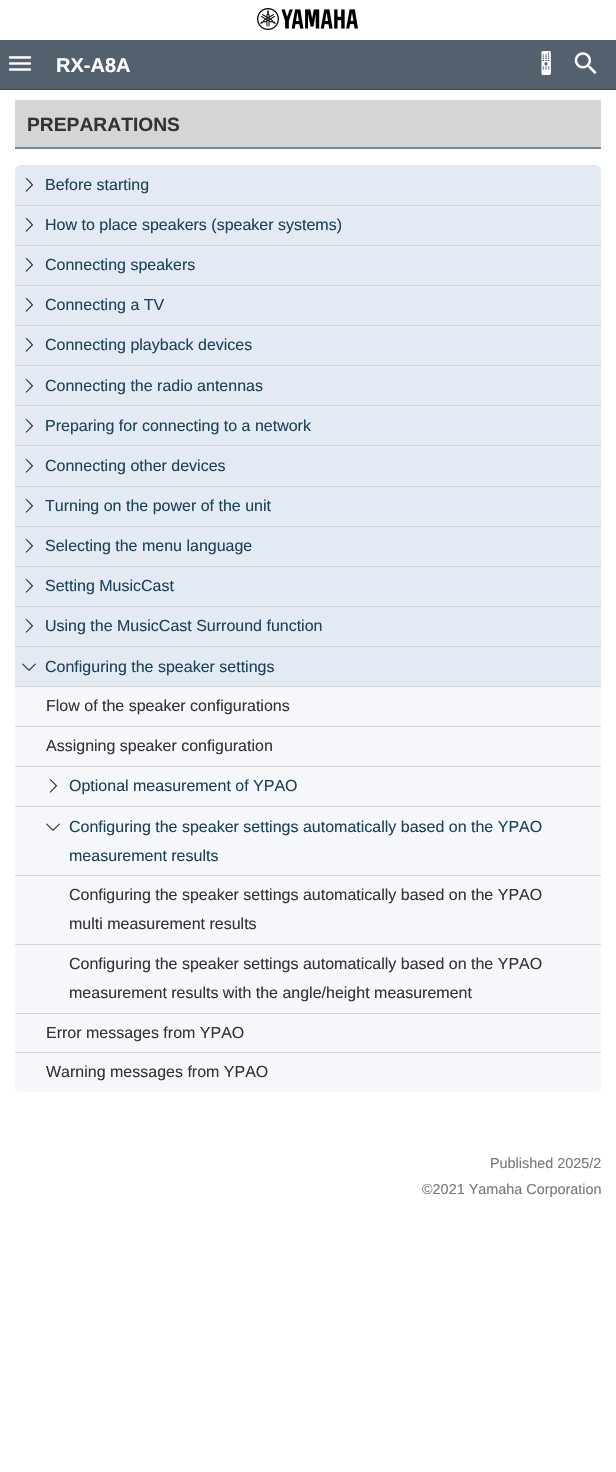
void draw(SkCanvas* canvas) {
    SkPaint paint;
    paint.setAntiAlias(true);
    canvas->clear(0xFFFFFFFF);
    canvas->drawImageRect(SkImages::DeferredFromEncodedData(SkData::MakeFromFileName("img1.png")), SkRect::MakeXYWH(257, 8, 101, 22), SkSamplingOptions());
    paint.setColor(0xFF53606D);
    canvas->drawRect(SkRect::MakeXYWH(0, 40, 616, 49), paint);
    paint.setColor(0xFF3A4651);
    canvas->drawRect(SkRect::MakeXYWH(0, 89, 616, 1), paint);
    canvas->drawImageRect(SkImages::DeferredFromEncodedData(SkData::MakeFromFileName("img2.png")), SkRect::MakeXYWH(9, 56, 22, 15), SkSamplingOptions());
    SkFont font1(fontMgr->matchFamilyStyle("Liberation Sans", SkFontStyle::Bold()), 20);
    font1.setSubpixel(true);
    paint.setColor(0xFFFFFFFF);
    canvas->drawString("RX-A8A", 56, 72, font1, paint);
    canvas->drawImageRect(SkImages::DeferredFromEncodedData(SkData::MakeFromFileName("img3.png")), SkRect::MakeXYWH(541, 51, 10, 24), SkSamplingOptions());
    canvas->drawImageRect(SkImages::DeferredFromEncodedData(SkData::MakeFromFileName("img4.png")), SkRect::MakeXYWH(574, 52, 23, 22), SkSamplingOptions());
    paint.setColor(0xFFD5D5D5);
    canvas->drawRect(SkRect::MakeXYWH(15, 100, 586, 47), paint);
    paint.setColor(0xFF75879B);
    canvas->drawRect(SkRect::MakeXYWH(15, 147, 586, 2), paint);
    SkFont font2(fontMgr->matchFamilyStyle("Liberation Sans", SkFontStyle::Bold()), 19.25f);
    font2.setSubpixel(true);
    paint.setColor(0xFF333333);
    canvas->drawString("PREPARATIONS", 27, 131, font2, paint);
    paint.setColor(0xFFE4EAF3);
    canvas->drawPath(SkPathBuilder().moveTo(21, 165).lineTo(595, 165).cubicTo(598.5f, 165, 601, 167.5f, 601, 171).lineTo(601, 205).lineTo(15, 205).lineTo(15, 171).cubicTo(15, 167.5f, 17.5f, 165, 21, 165).close().detach(), paint);
    canvas->drawImageRect(SkImages::DeferredFromEncodedData(SkData::MakeFromFileName("img5.png")), SkRect::MakeXYWH(25, 178, 8, 14), SkSamplingOptions());
    SkFont font3(fontMgr->matchFamilyStyle("Liberation Sans", SkFontStyle::Normal()), 16);
    font3.setSubpixel(true);
    paint.setColor(0xFF1C4257);
    canvas->drawString("Before starting", 45, 190, font3, paint);
    paint.setColor(0xFFD5D5D5);
    canvas->drawRect(SkRect::MakeXYWH(15, 205, 586, 1), paint);
    paint.setColor(0xFFE4EAF3);
    canvas->drawRect(SkRect::MakeXYWH(15, 206, 586, 39), paint);
    canvas->drawImageRect(SkImages::DeferredFromEncodedData(SkData::MakeFromFileName("img5.png")), SkRect::MakeXYWH(25, 218, 8, 14), SkSamplingOptions());
    paint.setColor(0xFF1C4257);
    canvas->drawString("How to place speakers (speaker systems)", 45, 230, font3, paint);
    paint.setColor(0xFFD5D5D5);
    canvas->drawRect(SkRect::MakeXYWH(15, 245, 586, 1), paint);
    paint.setColor(0xFFE4EAF3);
    canvas->drawRect(SkRect::MakeXYWH(15, 246, 586, 39), paint);
    canvas->drawImageRect(SkImages::DeferredFromEncodedData(SkData::MakeFromFileName("img5.png")), SkRect::MakeXYWH(25, 258, 8, 14), SkSamplingOptions());
    paint.setColor(0xFF1C4257);
    canvas->drawString("Connecting speakers", 45, 270, font3, paint);
    paint.setColor(0xFFD5D5D5);
    canvas->drawRect(SkRect::MakeXYWH(15, 285, 586, 1), paint);
    paint.setColor(0xFFE4EAF3);
    canvas->drawRect(SkRect::MakeXYWH(15, 286, 586, 39), paint);
    canvas->drawImageRect(SkImages::DeferredFromEncodedData(SkData::MakeFromFileName("img5.png")), SkRect::MakeXYWH(25, 298, 8, 14), SkSamplingOptions());
    paint.setColor(0xFF1C4257);
    canvas->drawString("Connecting a TV", 45, 310, font3, paint);
    paint.setColor(0xFFD5D5D5);
    canvas->drawRect(SkRect::MakeXYWH(15, 325, 586, 1), paint);
    paint.setColor(0xFFE4EAF3);
    canvas->drawRect(SkRect::MakeXYWH(15, 326, 586, 39), paint);
    canvas->drawImageRect(SkImages::DeferredFromEncodedData(SkData::MakeFromFileName("img5.png")), SkRect::MakeXYWH(25, 338, 8, 14), SkSamplingOptions());
    paint.setColor(0xFF1C4257);
    canvas->drawString("Connecting playback devices", 45, 350, font3, paint);
    paint.setColor(0xFFD5D5D5);
    canvas->drawRect(SkRect::MakeXYWH(15, 365, 586, 1), paint);
    paint.setColor(0xFFE4EAF3);
    canvas->drawRect(SkRect::MakeXYWH(15, 366, 586, 39), paint);
    canvas->drawImageRect(SkImages::DeferredFromEncodedData(SkData::MakeFromFileName("img5.png")), SkRect::MakeXYWH(25, 379, 8, 14), SkSamplingOptions());
    paint.setColor(0xFF1C4257);
    canvas->drawString("Connecting the radio antennas", 45, 391, font3, paint);
    paint.setColor(0xFFD5D5D5);
    canvas->drawRect(SkRect::MakeXYWH(15, 405, 586, 1), paint);
    paint.setColor(0xFFE4EAF3);
    canvas->drawRect(SkRect::MakeXYWH(15, 406, 586, 39), paint);
    canvas->drawImageRect(SkImages::DeferredFromEncodedData(SkData::MakeFromFileName("img5.png")), SkRect::MakeXYWH(25, 419, 8, 14), SkSamplingOptions());
    paint.setColor(0xFF1C4257);
    canvas->drawString("Preparing for connecting to a network", 45, 431, font3, paint);
    paint.setColor(0xFFD5D5D5);
    canvas->drawRect(SkRect::MakeXYWH(15, 445, 586, 1), paint);
    paint.setColor(0xFFE4EAF3);
    canvas->drawRect(SkRect::MakeXYWH(15, 446, 586, 40), paint);
    canvas->drawImageRect(SkImages::DeferredFromEncodedData(SkData::MakeFromFileName("img5.png")), SkRect::MakeXYWH(25, 459, 8, 14), SkSamplingOptions());
    paint.setColor(0xFF1C4257);
    canvas->drawString("Connecting other devices", 45, 471, font3, paint);
    paint.setColor(0xFFD5D5D5);
    canvas->drawRect(SkRect::MakeXYWH(15, 486, 586, 1), paint);
    paint.setColor(0xFFE4EAF3);
    canvas->drawRect(SkRect::MakeXYWH(15, 487, 586, 39), paint);
    canvas->drawImageRect(SkImages::DeferredFromEncodedData(SkData::MakeFromFileName("img5.png")), SkRect::MakeXYWH(25, 499, 8, 14), SkSamplingOptions());
    paint.setColor(0xFF1C4257);
    canvas->drawString("Turning on the power of the unit", 45, 511, font3, paint);
    paint.setColor(0xFFD5D5D5);
    canvas->drawRect(SkRect::MakeXYWH(15, 526, 586, 1), paint);
    paint.setColor(0xFFE4EAF3);
    canvas->drawRect(SkRect::MakeXYWH(15, 527, 586, 39), paint);
    canvas->drawImageRect(SkImages::DeferredFromEncodedData(SkData::MakeFromFileName("img5.png")), SkRect::MakeXYWH(25, 539, 8, 14), SkSamplingOptions());
    paint.setColor(0xFF1C4257);
    canvas->drawString("Selecting the menu language", 45, 551, font3, paint);
    paint.setColor(0xFFD5D5D5);
    canvas->drawRect(SkRect::MakeXYWH(15, 566, 586, 1), paint);
    paint.setColor(0xFFE4EAF3);
    canvas->drawRect(SkRect::MakeXYWH(15, 567, 586, 39), paint);
    canvas->drawImageRect(SkImages::DeferredFromEncodedData(SkData::MakeFromFileName("img5.png")), SkRect::MakeXYWH(25, 579, 8, 14), SkSamplingOptions());
    paint.setColor(0xFF1C4257);
    canvas->drawString("Setting MusicCast", 45, 591, font3, paint);
    paint.setColor(0xFFD5D5D5);
    canvas->drawRect(SkRect::MakeXYWH(15, 606, 586, 1), paint);
    paint.setColor(0xFFE4EAF3);
    canvas->drawRect(SkRect::MakeXYWH(15, 607, 586, 39), paint);
    canvas->drawImageRect(SkImages::DeferredFromEncodedData(SkData::MakeFromFileName("img5.png")), SkRect::MakeXYWH(25, 619, 8, 14), SkSamplingOptions());
    paint.setColor(0xFF1C4257);
    canvas->drawString("Using the MusicCast Surround function", 45, 631, font3, paint);
    paint.setColor(0xFFF5F7FA);
    canvas->drawPath(SkPathBuilder().moveTo(15, 646).lineTo(601, 646).lineTo(601, 1086).cubicTo(601, 1089.5f, 598.5f, 1092, 595, 1092).lineTo(21, 1092).cubicTo(17.5f, 1092, 15, 1089.5f, 15, 1086).close().detach(), paint);
    paint.setColor(0xFFD5D5D5);
    canvas->drawRect(SkRect::MakeXYWH(15, 646, 586, 1), paint);
    paint.setColor(0xFFE4EAF3);
    canvas->drawRect(SkRect::MakeXYWH(15, 647, 586, 39), paint);
    canvas->drawImageRect(SkImages::DeferredFromEncodedData(SkData::MakeFromFileName("img6.png")), SkRect::MakeXYWH(22, 663, 14, 8), SkSamplingOptions());
    paint.setColor(0xFF1C4257);
    canvas->drawString("Configuring the speaker settings", 45, 672, font3, paint);
    paint.setColor(0xFFD5D5D5);
    canvas->drawRect(SkRect::MakeXYWH(15, 686, 586, 1), paint);
    paint.setColor(0xFF333333);
    canvas->drawString("Flow of the speaker configurations", 46, 711, font3, paint);
    paint.setColor(0xFFD5D5D5);
    canvas->drawRect(SkRect::MakeXYWH(15, 726, 586, 1), paint);
    paint.setColor(0xFF333333);
    canvas->drawString("Assigning speaker configuration", 46, 751, font3, paint);
    paint.setColor(0xFFD5D5D5);
    canvas->drawRect(SkRect::MakeXYWH(15, 766, 586, 1), paint);
    canvas->drawImageRect(SkImages::DeferredFromEncodedData(SkData::MakeFromFileName("img7.png")), SkRect::MakeXYWH(49, 779, 8, 14), SkSamplingOptions());
    paint.setColor(0xFF1C4257);
    canvas->drawString("Optional measurement of YPAO", 69, 791, font3, paint);
    paint.setColor(0xFFD5D5D5);
    canvas->drawRect(SkRect::MakeXYWH(15, 806, 586, 1), paint);
    canvas->drawImageRect(SkImages::DeferredFromEncodedData(SkData::MakeFromFileName("img8.png")), SkRect::MakeXYWH(46, 823, 14, 8), SkSamplingOptions());
    paint.setColor(0xFF1C4257);
    canvas->drawString("Configuring the speaker settings automatically based on the YPAO", 69, 832, font3, paint);
    canvas->drawString("measurement results", 69, 861, font3, paint);
    paint.setColor(0xFFD5D5D5);
    canvas->drawRect(SkRect::MakeXYWH(15, 875, 586, 1), paint);
    paint.setColor(0xFF333333);
    canvas->drawString("Configuring the speaker settings automatically based on the YPAO", 69, 900, font3, paint);
    canvas->drawString("multi measurement results", 69, 929, font3, paint);
    paint.setColor(0xFFD5D5D5);
    canvas->drawRect(SkRect::MakeXYWH(15, 944, 586, 1), paint);
    paint.setColor(0xFF333333);
    canvas->drawString("Configuring the speaker settings automatically based on the YPAO", 69, 969, font3, paint);
    canvas->drawString("measurement results with the angle/height measurement", 69, 998, font3, paint);
    paint.setColor(0xFFD5D5D5);
    canvas->drawRect(SkRect::MakeXYWH(15, 1013, 586, 1), paint);
    paint.setColor(0xFF333333);
    canvas->drawString("Error messages from YPAO", 46, 1038, font3, paint);
    paint.setColor(0xFFD5D5D5);
    canvas->drawRect(SkRect::MakeXYWH(15, 1052, 586, 1), paint);
    paint.setColor(0xFF333333);
    canvas->drawString("Warning messages from YPAO", 46, 1077, font3, paint);
    SkFont font4(fontMgr->matchFamilyStyle("Liberation Sans", SkFontStyle::Normal()), 14.4f);
    font4.setSubpixel(true);
    paint.setColor(0xFF777777);
    canvas->drawString("Published 2025/2", 490, 1168, font4, paint);
    canvas->drawString("©2021 Yamaha Corporation", 422, 1194, font4, paint);
}
